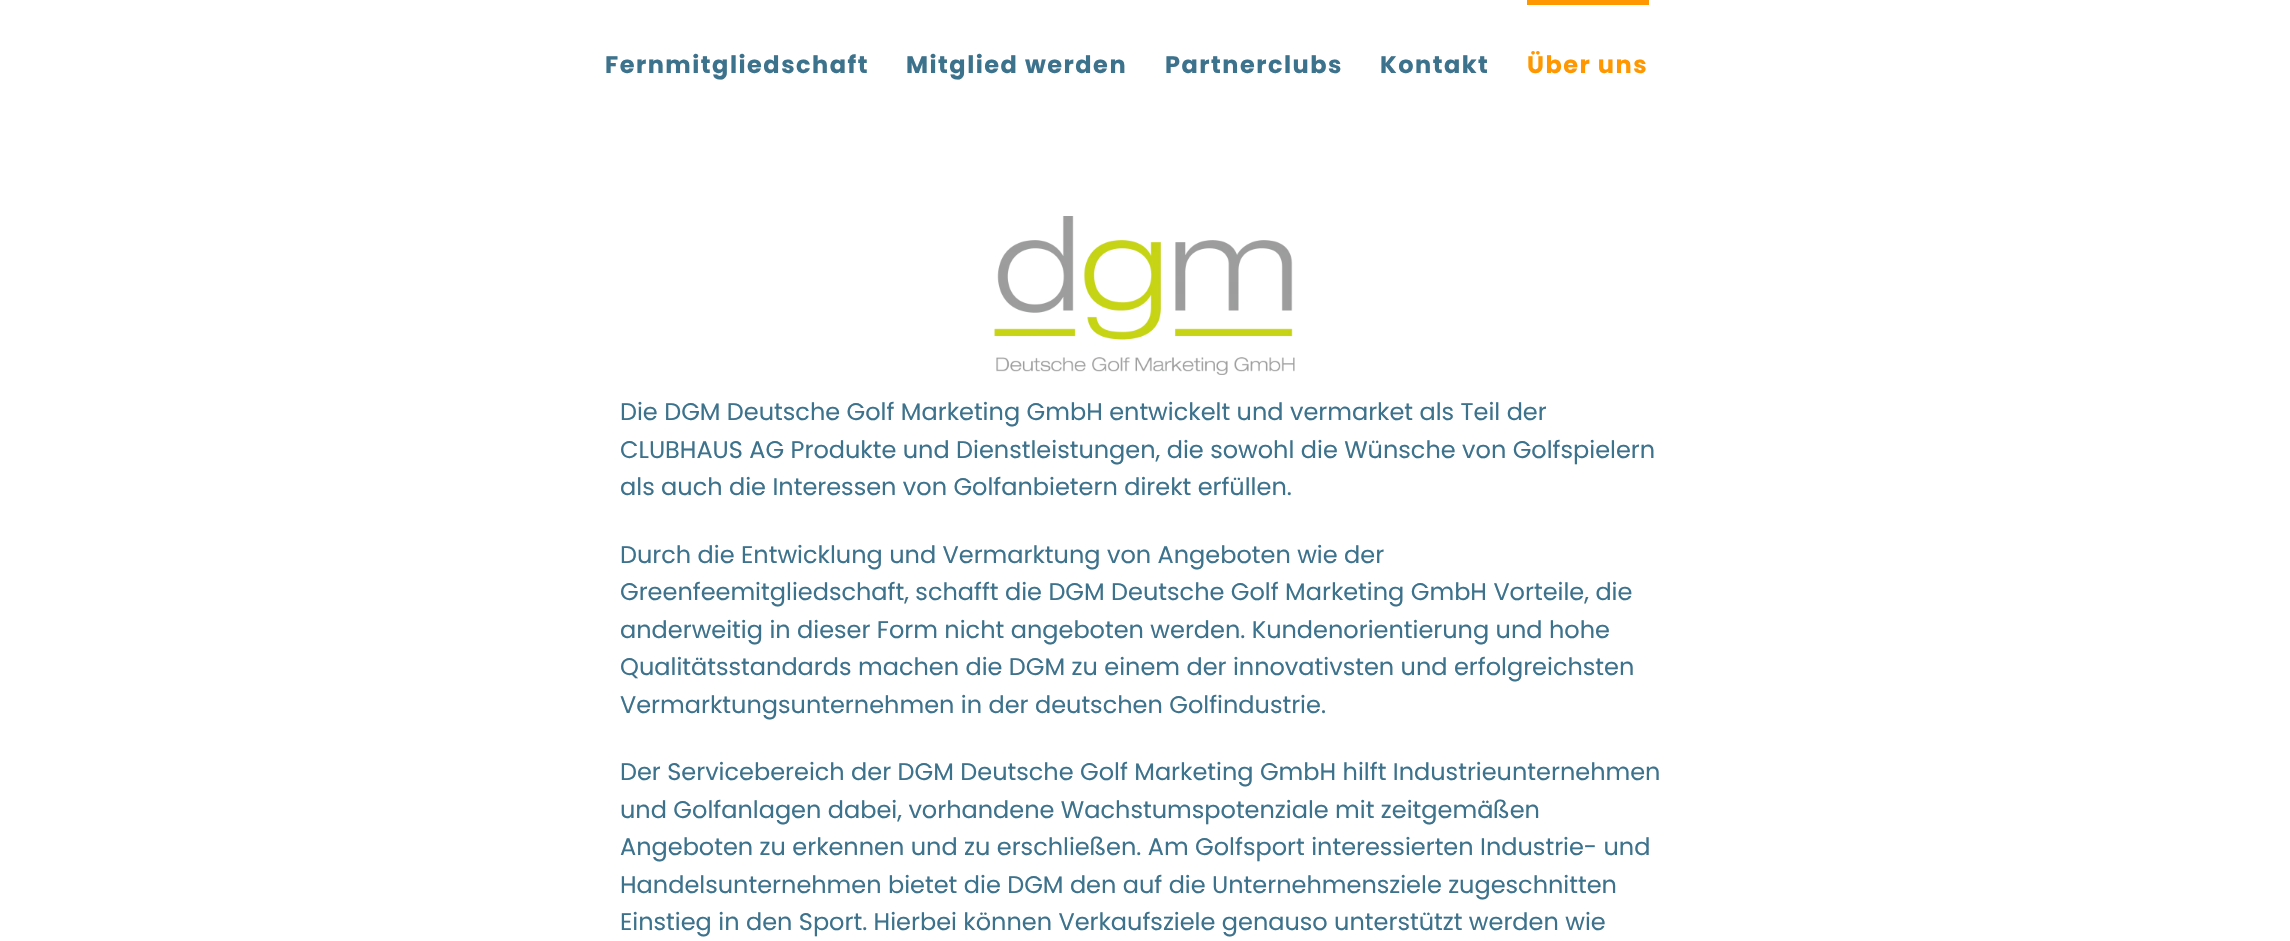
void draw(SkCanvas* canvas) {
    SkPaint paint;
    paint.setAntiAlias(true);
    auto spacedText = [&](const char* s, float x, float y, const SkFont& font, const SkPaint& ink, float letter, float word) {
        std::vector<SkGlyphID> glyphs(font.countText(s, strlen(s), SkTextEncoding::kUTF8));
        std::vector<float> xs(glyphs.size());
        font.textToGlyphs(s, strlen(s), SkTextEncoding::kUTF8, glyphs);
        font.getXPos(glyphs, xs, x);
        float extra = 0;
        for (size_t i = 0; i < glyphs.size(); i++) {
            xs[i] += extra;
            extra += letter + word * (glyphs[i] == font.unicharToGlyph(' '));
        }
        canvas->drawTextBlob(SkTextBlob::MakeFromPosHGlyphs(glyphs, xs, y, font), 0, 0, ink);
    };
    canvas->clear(0xFFFFFFFF);
    SkFont font1(fontMgr->matchFamilyStyle("Poppins", SkFontStyle::Bold()), 24);
    font1.setSubpixel(true);
    paint.setColor(0xFF3D728C);
    spacedText("Fernmitgliedschaft", 605, 73, font1, paint, 1.5f, 0);
    spacedText("Mitglied werden", 906, 73, font1, paint, 1.5f, 0);
    spacedText("Partnerclubs", 1165, 73, font1, paint, 1.5f, 0);
    spacedText("Kontakt", 1380, 73, font1, paint, 1.5f, 0);
    paint.setColor(0xFFFF9800);
    canvas->drawRect(SkRect::MakeXYWH(1527, 0, 122, 5), paint);
    spacedText("Über uns", 1527, 73, font1, paint, 1.5f, 0);
    canvas->drawImageRect(SkImages::DeferredFromEncodedData(SkData::MakeFromFileName("img1.png")), SkRect::MakeXYWH(994, 216, 301, 159), SkSamplingOptions());
    SkFont font2(fontMgr->matchFamilyStyle("Poppins", SkFontStyle::Normal()), 24);
    font2.setSubpixel(true);
    paint.setColor(0xFF3D728C);
    canvas->drawString("Die DGM Deutsche Golf Marketing GmbH entwickelt und vermarket als Teil der", 620, 420, font2, paint);
    canvas->drawString("CLUBHAUS AG Produkte und Dienstleistungen, die sowohl die Wünsche von Golfspielern", 620, 458, font2, paint);
    canvas->drawString("als auch die Interessen von Golfanbietern direkt erfüllen.", 620, 495, font2, paint);
    canvas->drawString("Durch die Entwicklung und Vermarktung von Angeboten wie der", 620, 563, font2, paint);
    canvas->drawString("Greenfeemitgliedschaft, schafft die DGM Deutsche Golf Marketing GmbH Vorteile, die", 620, 600, font2, paint);
    canvas->drawString("anderweitig in dieser Form nicht angeboten werden. Kundenorientierung und hohe", 620, 638, font2, paint);
    canvas->drawString("Qualitätsstandards machen die DGM zu einem der innovativsten und erfolgreichsten", 620, 675, font2, paint);
    canvas->drawString("Vermarktungsunternehmen in der deutschen Golfindustrie.", 620, 713, font2, paint);
    canvas->drawString("Der Servicebereich der DGM Deutsche Golf Marketing GmbH hilft Industrieunternehmen", 620, 780, font2, paint);
    canvas->drawString("und Golfanlagen dabei, vorhandene Wachstumspotenziale mit zeitgemäßen", 620, 818, font2, paint);
    canvas->drawString("Angeboten zu erkennen und zu erschließen. Am Golfsport interessierten Industrie- und", 620, 855, font2, paint);
    canvas->drawString("Handelsunternehmen bietet die DGM den auf die Unternehmensziele zugeschnitten", 620, 893, font2, paint);
    canvas->drawString("Einstieg in den Sport. Hierbei können Verkaufsziele genauso unterstützt werden wie", 620, 930, font2, paint);
}
